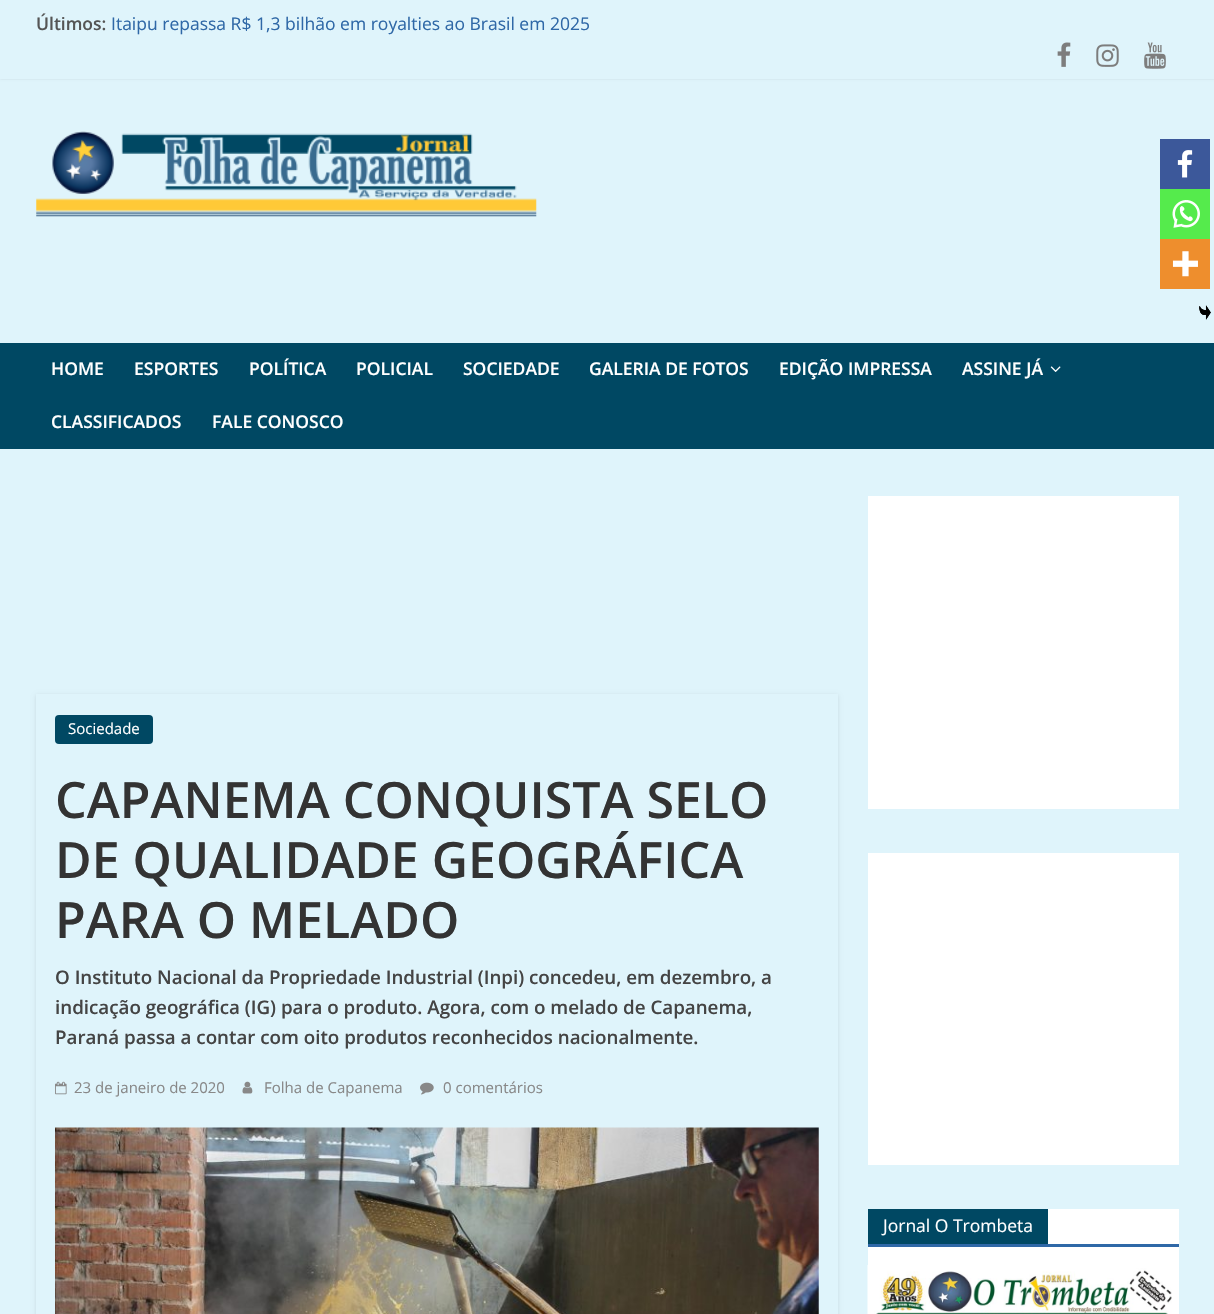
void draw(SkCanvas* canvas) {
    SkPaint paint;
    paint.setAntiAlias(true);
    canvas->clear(0xFFDFF4FB);
    paint.setColor(0x1A000000);
    paint.setMaskFilter(SkMaskFilter::MakeBlur(kNormal_SkBlurStyle, 1));
    canvas->drawRect(SkRect::MakeXYWH(0, 0, 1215, 79), paint);
    paint.setMaskFilter(nullptr);
    paint.setColor(0xFFDFF4FB);
    canvas->drawRect(SkRect::MakeXYWH(0, 0, 1214, 79), paint);
    SkFont font1(fontMgr->matchFamilyStyle("Open Sans", SkFontStyle(600, SkFontStyle::kNormal_Width, SkFontStyle::kUpright_Slant)), 17.5f);
    font1.setSubpixel(true);
    paint.setColor(0xFF555555);
    canvas->drawString("Últimos:", 36, 30, font1, paint);
    SkFont font2(fontMgr->matchFamilyStyle("Open Sans", SkFontStyle::Normal()), 17.5f);
    font2.setSubpixel(true);
    paint.setColor(0xFF2F68A7);
    canvas->drawString("Itaipu repassa R$ 1,3 bilhão em royalties ao Brasil em 2025", 111, 30, font2, paint);
    canvas->drawImageRect(SkImages::DeferredFromEncodedData(SkData::MakeFromFileName("img1.png")), SkRect::MakeXYWH(1057, 42, 14, 25), SkSamplingOptions());
    canvas->drawImageRect(SkImages::DeferredFromEncodedData(SkData::MakeFromFileName("img2.png")), SkRect::MakeXYWH(1096, 44, 23, 23), SkSamplingOptions());
    canvas->drawImageRect(SkImages::DeferredFromEncodedData(SkData::MakeFromFileName("img3.png")), SkRect::MakeXYWH(1144, 42, 22, 27), SkSamplingOptions());
    canvas->drawImageRect(SkImages::DeferredFromEncodedData(SkData::MakeFromFileName("img4.png")), SkRect::MakeXYWH(36, 131, 501, 86), SkSamplingOptions());
    paint.setColor(0xFF004863);
    canvas->drawRect(SkRect::MakeXYWH(0, 343, 1214, 106), paint);
    paint.setColor(0xFFFFFFFF);
    canvas->drawString("HOME", 51, 375, font1, paint);
    canvas->drawString("ESPORTES", 134, 375, font1, paint);
    canvas->drawString("POLÍTICA", 249, 375, font1, paint);
    canvas->drawString("POLICIAL", 356, 375, font1, paint);
    canvas->drawString("SOCIEDADE", 463, 375, font1, paint);
    canvas->drawString("GALERIA DE FOTOS", 589, 375, font1, paint);
    canvas->drawString("EDIÇÃO IMPRESSA", 779, 375, font1, paint);
    canvas->drawString("ASSINE JÁ", 962, 375, font1, paint);
    canvas->drawImageRect(SkImages::DeferredFromEncodedData(SkData::MakeFromFileName("img5.png")), SkRect::MakeXYWH(1050, 366, 11, 6), SkSamplingOptions());
    canvas->drawString("CLASSIFICADOS", 51, 428, font1, paint);
    canvas->drawString("FALE CONOSCO", 212, 428, font1, paint);
    canvas->save();
    canvas->clipPath(SkPathBuilder(SkPathFillType::kEvenOdd).moveTo(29, 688).lineTo(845, 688).lineTo(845, 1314).lineTo(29, 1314).close().moveTo(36, 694).lineTo(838, 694).lineTo(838, 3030).lineTo(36, 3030).close().detach(), true);
    paint.setColor(0x1A000000);
    paint.setMaskFilter(SkMaskFilter::MakeBlur(kNormal_SkBlurStyle, 2));
    canvas->drawRect(SkRect::MakeXYWH(36, 695, 802, 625), paint);
    paint.setMaskFilter(nullptr);
    canvas->restore();
    paint.setColor(0xFF3C589A);
    canvas->drawRect(SkRect::MakeXYWH(1160, 139, 50, 50), paint);
    canvas->drawImageRect(SkImages::DeferredFromEncodedData(SkData::MakeFromFileName("img6.png")), SkRect::MakeXYWH(1177, 150, 16, 28), SkSamplingOptions());
    paint.setColor(0xFF55EB4C);
    canvas->drawRect(SkRect::MakeXYWH(1160, 189, 50, 50), paint);
    canvas->drawImageRect(SkImages::DeferredFromEncodedData(SkData::MakeFromFileName("img7.png")), SkRect::MakeXYWH(1172, 200, 28, 28), SkSamplingOptions());
    paint.setColor(0xFFEE8E2D);
    canvas->drawRect(SkRect::MakeXYWH(1160, 239, 50, 50), paint);
    canvas->drawImageRect(SkImages::DeferredFromEncodedData(SkData::MakeFromFileName("img8.png")), SkRect::MakeXYWH(1172, 251, 26, 26), SkSamplingOptions());
    canvas->drawImageRect(SkImages::DeferredFromEncodedData(SkData::MakeFromFileName("img10.png")), SkRect::MakeXYWH(1199, 305, 12, 15), SkSamplingOptions());
    canvas->drawImageRect(SkImages::DeferredFromEncodedData(SkData::MakeFromFileName("img9.png")), SkRect::MakeXYWH(1199, 305, 12, 15), SkSamplingOptions());
    paint.setColor(0xFF004863);
    canvas->drawRoundRect(SkRect::MakeXYWH(55, 715, 98, 29), 4, 4, paint);
    SkFont font3(fontMgr->matchFamilyStyle("Open Sans", SkFontStyle::Normal()), 15);
    font3.setSubpixel(true);
    paint.setColor(0xFFFFFFFF);
    canvas->drawString("Sociedade", 68, 734, font3, paint);
    SkFont font4(fontMgr->matchFamilyStyle("Open Sans", SkFontStyle(600, SkFontStyle::kNormal_Width, SkFontStyle::kUpright_Slant)), 50);
    font4.setSubpixel(true);
    paint.setColor(0xFF333333);
    canvas->drawString("CAPANEMA CONQUISTA SELO", 55, 818, font4, paint);
    canvas->drawString("DE QUALIDADE GEOGRÁFICA", 55, 878, font4, paint);
    canvas->drawString("PARA O MELADO", 55, 938, font4, paint);
    SkFont font5(fontMgr->matchFamilyStyle("Open Sans", SkFontStyle(600, SkFontStyle::kNormal_Width, SkFontStyle::kUpright_Slant)), 18.75f);
    font5.setSubpixel(true);
    paint.setColor(0xFF444444);
    canvas->drawString("O Instituto Nacional da Propriedade Industrial (Inpi) concedeu, em dezembro, a", 55, 984, font5, paint);
    canvas->drawString("indicação geográfica (IG) para o produto. Agora, com o melado de Capanema,", 55, 1014, font5, paint);
    canvas->drawString("Paraná passa a contar com oito produtos reconhecidos nacionalmente.", 55, 1044, font5, paint);
    canvas->drawImageRect(SkImages::DeferredFromEncodedData(SkData::MakeFromFileName("img11.png")), SkRect::MakeXYWH(55, 1081, 12, 14), SkSamplingOptions());
    paint.setColor(0xFF888888);
    canvas->drawString("23 de janeiro de 2020", 74, 1093, font3, paint);
    canvas->drawImageRect(SkImages::DeferredFromEncodedData(SkData::MakeFromFileName("img12.png")), SkRect::MakeXYWH(242, 1081, 11, 13), SkSamplingOptions());
    canvas->drawString("Folha de Capanema", 264, 1093, font3, paint);
    canvas->drawImageRect(SkImages::DeferredFromEncodedData(SkData::MakeFromFileName("img13.png")), SkRect::MakeXYWH(420, 1082, 14, 13), SkSamplingOptions());
    canvas->drawString("0 comentários", 443, 1093, font3, paint);
    canvas->drawImageRect(SkImages::DeferredFromEncodedData(SkData::MakeFromFileName("img14.png")), SkRect::MakeXYWH(55, 1127, 764, 187), SkSamplingOptions());
    paint.setColor(0xFFFFFFFF);
    canvas->drawRect(SkRect::MakeXYWH(868, 496, 311, 313), paint);
    canvas->drawRect(SkRect::MakeXYWH(868, 853, 311, 312), paint);
    canvas->drawRect(SkRect::MakeXYWH(868, 1209, 311, 105), paint);
    paint.setColor(0xFF2F68A7);
    canvas->drawRect(SkRect::MakeXYWH(868, 1244, 311, 3), paint);
    paint.setColor(0xFF004863);
    canvas->drawRect(SkRect::MakeXYWH(868, 1209, 180, 35), paint);
    paint.setColor(0xFFFFFFFF);
    canvas->drawString("Jornal O Trombeta", 883, 1232, font2, paint);
    canvas->drawImageRect(SkImages::DeferredFromEncodedData(SkData::MakeFromFileName("img15.png")), SkRect::MakeXYWH(867, 1265, 305, 49), SkSamplingOptions());
}
